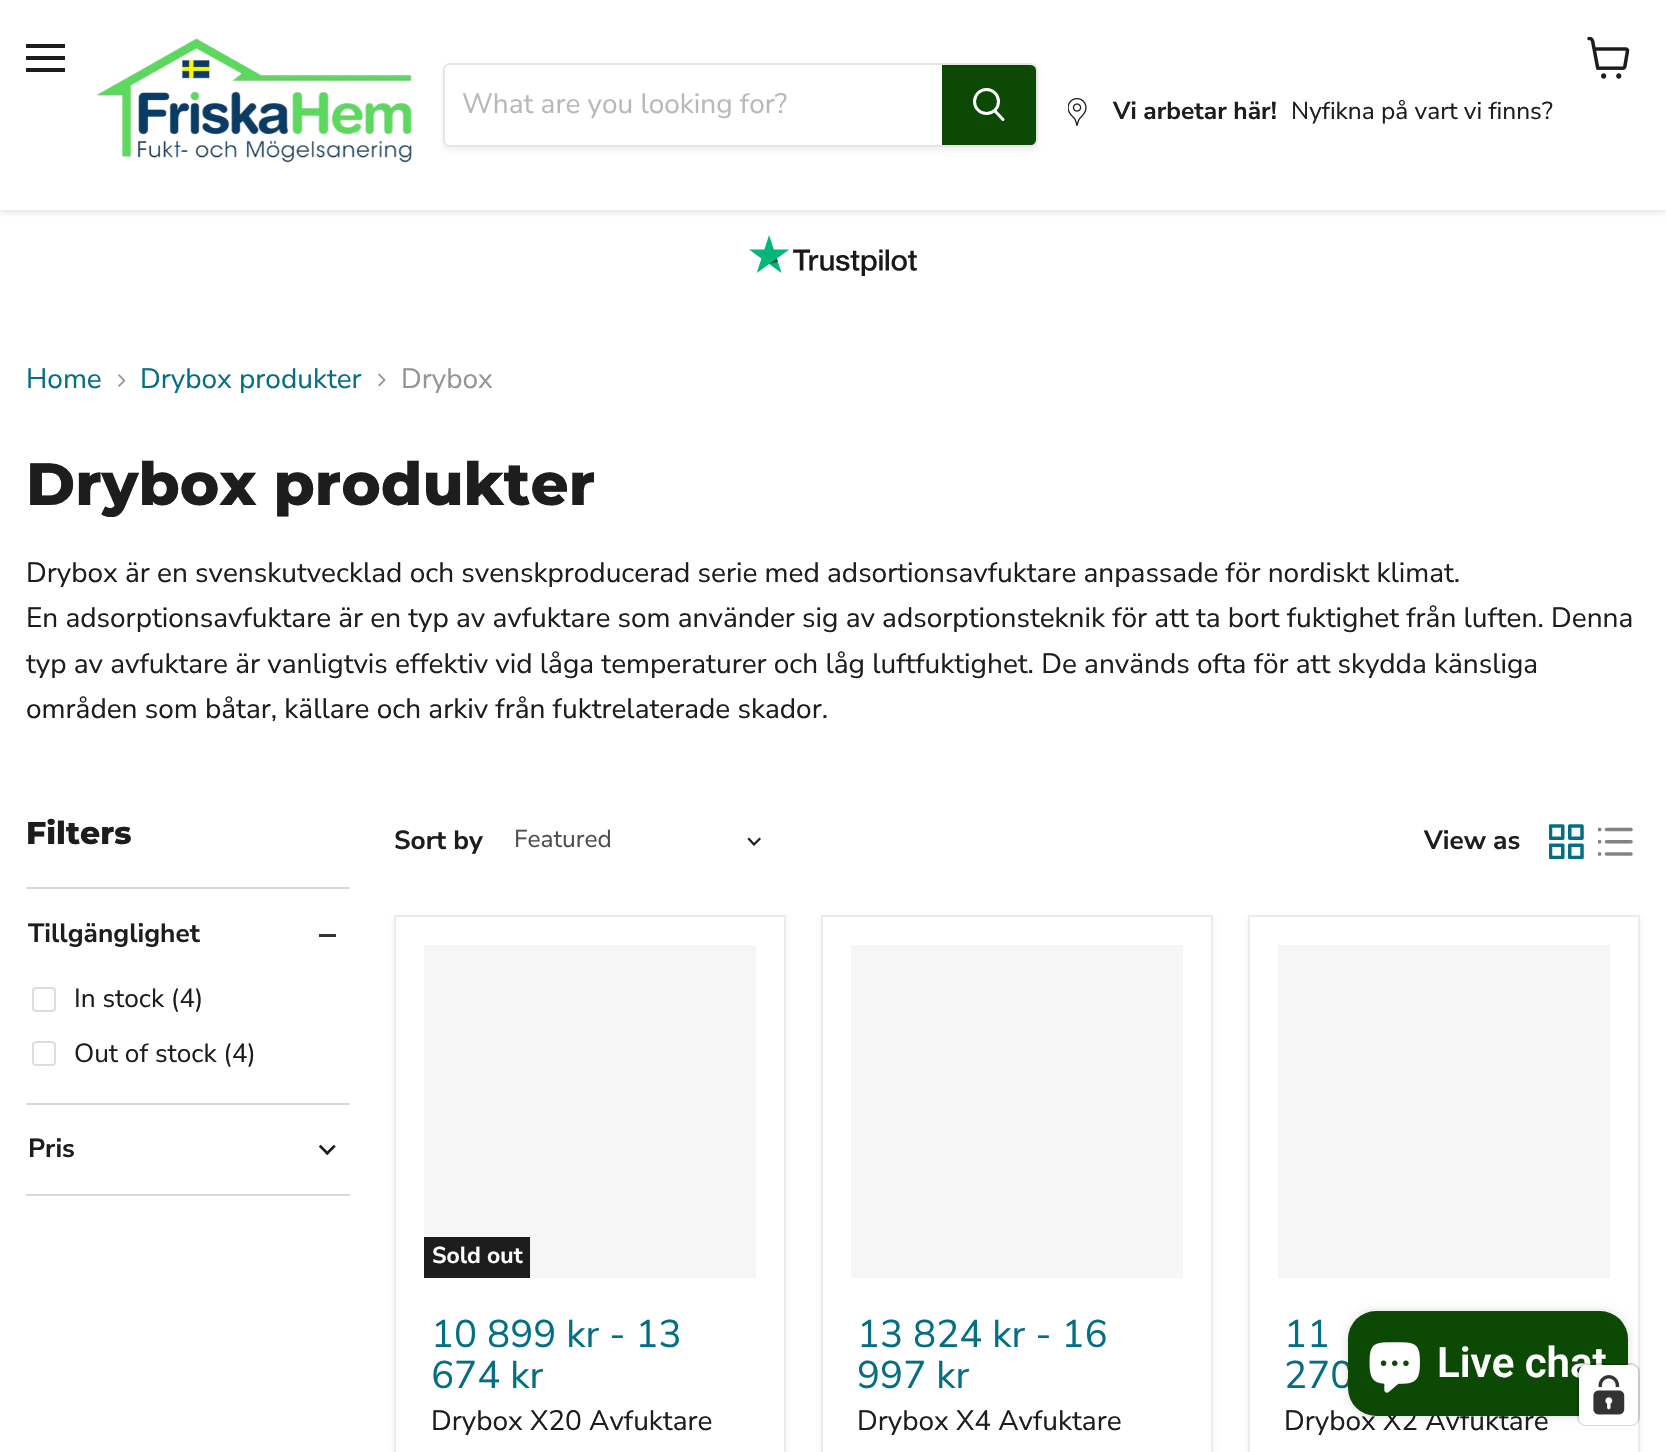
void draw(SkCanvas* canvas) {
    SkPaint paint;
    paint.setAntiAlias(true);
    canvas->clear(0xFFFFFFFF);
    canvas->save();
    canvas->clipRect(SkRect::MakeXYWH(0, 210, 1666, 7));
    paint.setColor(0x40808080);
    paint.setMaskFilter(SkMaskFilter::MakeBlur(kNormal_SkBlurStyle, 3.5f));
    canvas->drawRect(SkRect::MakeXYWH(0, 2, 1666, 210), paint);
    paint.setMaskFilter(nullptr);
    canvas->restore();
    paint.setColor(0xFF1D1D1D);
    canvas->drawRect(SkRect::MakeXYWH(26, 44, 39, 4), paint);
    canvas->drawRect(SkRect::MakeXYWH(26, 56, 39, 4), paint);
    canvas->drawRect(SkRect::MakeXYWH(26, 68, 39, 4), paint);
    canvas->drawImageRect(SkImages::DeferredFromEncodedData(SkData::MakeFromFileName("img1.png")), SkRect::MakeXYWH(1587, 37, 43, 42), SkSamplingOptions());
    canvas->drawImageRect(SkImages::DeferredFromEncodedData(SkData::MakeFromFileName("img2.png")), SkRect::MakeXYWH(96, 38, 316, 125), SkSamplingOptions());
    canvas->save();
    canvas->clipPath(SkPathBuilder(SkPathFillType::kEvenOdd).moveTo(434, 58).lineTo(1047, 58).lineTo(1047, 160).lineTo(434, 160).close().moveTo(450, 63).lineTo(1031, 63).cubicTo(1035, 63, 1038, 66, 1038, 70).lineTo(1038, 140).cubicTo(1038, 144, 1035, 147, 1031, 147).lineTo(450, 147).cubicTo(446, 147, 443, 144, 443, 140).lineTo(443, 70).cubicTo(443, 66, 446, 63, 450, 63).close().detach(), true);
    paint.setColor(0x1C808080);
    paint.setMaskFilter(SkMaskFilter::MakeBlur(kNormal_SkBlurStyle, 2.5f));
    canvas->drawRoundRect(SkRect::MakeXYWH(443, 67, 595, 84), 7, 7, paint);
    paint.setMaskFilter(nullptr);
    canvas->restore();
    paint.setStyle(SkPaint::kStroke_Style);
    paint.setStrokeWidth(2);
    paint.setColor(0x33808080);
    canvas->drawRoundRect(SkRect::MakeXYWH(444, 64, 593, 82), 6, 6, paint);
    paint.setStyle(SkPaint::kFill_Style);
    paint.setColor(0xFFFFFFFF);
    canvas->drawPath(SkPathBuilder().moveTo(450, 65).lineTo(942, 65).lineTo(942, 145).lineTo(450, 145).cubicTo(447, 145, 445, 143, 445, 140).lineTo(445, 70).cubicTo(445, 67, 447, 65, 450, 65).close().detach(), paint);
    SkFont font1(fontMgr->matchFamilyStyle("Nunito Sans", SkFontStyle::Normal()), 28);
    font1.setSubpixel(true);
    paint.setColor(0xFFB8B8B8);
    canvas->drawString("What are you looking for?", 462, 113, font1, paint);
    paint.setColor(0xFF0C4904);
    canvas->drawPath(SkPathBuilder().moveTo(943, 66).lineTo(1031, 66).cubicTo(1033, 66, 1035, 68, 1035, 70).lineTo(1035, 140).cubicTo(1035, 142, 1033, 144, 1031, 144).lineTo(943, 144).close().detach(), paint);
    paint.setStyle(SkPaint::kStroke_Style);
    canvas->drawPath(SkPathBuilder().moveTo(943, 66).lineTo(1031, 66).cubicTo(1033, 66, 1035, 68, 1035, 70).lineTo(1035, 140).cubicTo(1035, 142, 1033, 144, 1031, 144).lineTo(943, 144).close().detach(), paint);
    paint.setStrokeWidth(3);
    paint.setStrokeCap(SkPaint::kRound_Cap);
    paint.setColor(0xFFFFFFFF);
    canvas->drawPath(SkPathBuilder().moveTo(1003, 119.5f).lineTo(995, 111).detach(), paint);
    paint.setStrokeCap(SkPaint::kButt_Cap);
    canvas->drawCircle(986.5f, 101.5f, 12, paint);
    canvas->drawImageRect(SkImages::DeferredFromEncodedData(SkData::MakeFromFileName("img3.png")), SkRect::MakeXYWH(1068, 98, 19, 28), SkSamplingOptions());
    SkFont font2(fontMgr->matchFamilyStyle("Nunito Sans", SkFontStyle::Bold()), 24.5f);
    font2.setSubpixel(true);
    paint.setStyle(SkPaint::kFill_Style);
    paint.setColor(0xFF1D1D1D);
    canvas->drawString("Vi arbetar här!", 1113, 119, font2, paint);
    SkFont font3(fontMgr->matchFamilyStyle("Nunito Sans", SkFontStyle::Normal()), 24.5f);
    font3.setSubpixel(true);
    canvas->drawString("Nyfikna på vart vi finns?", 1291, 119, font3, paint);
    canvas->drawImageRect(SkImages::DeferredFromEncodedData(SkData::MakeFromFileName("img4.png")), SkRect::MakeXYWH(749, 235, 168, 41), SkSamplingOptions());
    paint.setColor(0xFF046E82);
    canvas->drawString("Home", 26, 388, font1, paint);
    canvas->drawImageRect(SkImages::DeferredFromEncodedData(SkData::MakeFromFileName("img5.png")), SkRect::MakeXYWH(118, 374, 8, 13), SkSamplingOptions());
    canvas->drawString("Drybox produkter", 140, 388, font1, paint);
    canvas->drawImageRect(SkImages::DeferredFromEncodedData(SkData::MakeFromFileName("img6.png")), SkRect::MakeXYWH(378, 373, 8, 14), SkSamplingOptions());
    paint.setColor(0xFF949494);
    canvas->drawString("Drybox", 401, 388, font1, paint);
    SkFont font4(fontMgr->matchFamilyStyle("Montserrat", SkFontStyle(800, SkFontStyle::kNormal_Width, SkFontStyle::kUpright_Slant)), 59.5f);
    font4.setSubpixel(true);
    paint.setColor(0xFF1D1D1D);
    canvas->drawString("Drybox produkter", 26, 505, font4, paint);
    canvas->drawString("Drybox är en svenskutvecklad och svenskproducerad serie med adsortionsavfuktare anpassade för nordiskt klimat.", 26, 582, font1, paint);
    canvas->drawString("En adsorptionsavfuktare är en typ av avfuktare som använder sig av adsorptionsteknik för att ta bort fuktighet från luften. Denna", 26, 627, font1, paint);
    canvas->drawString("typ av avfuktare är vanligtvis effektiv vid låga temperaturer och låg luftfuktighet. De används ofta för att skydda känsliga", 26, 673, font1, paint);
    canvas->drawString("områden som båtar, källare och arkiv från fuktrelaterade skador.", 26, 718, font1, paint);
    SkFont font5(fontMgr->matchFamilyStyle("Montserrat", SkFontStyle(800, SkFontStyle::kNormal_Width, SkFontStyle::kUpright_Slant)), 31.5f);
    font5.setSubpixel(true);
    canvas->drawString("Filters", 26, 844, font5, paint);
    paint.setColor(0xFFD9D9D9);
    canvas->drawRect(SkRect::MakeXYWH(26, 887, 324, 2), paint);
    SkFont font6(fontMgr->matchFamilyStyle("Nunito Sans", SkFontStyle::Bold()), 26.25f);
    font6.setSubpixel(true);
    paint.setColor(0xFF1D1D1D);
    canvas->drawString("Tillgänglighet", 28, 942, font6, paint);
    paint.setColor(0xFF343434);
    canvas->drawRect(SkRect::MakeXYWH(319, 934, 17, 3), paint);
    paint.setStyle(SkPaint::kStroke_Style);
    paint.setStrokeWidth(2);
    paint.setColor(0xFFDDDDDD);
    canvas->drawRoundRect(SkRect::MakeXYWH(33, 988, 22, 23), 3, 3, paint);
    SkFont font7(fontMgr->matchFamilyStyle("Nunito Sans", SkFontStyle::Normal()), 26.25f);
    font7.setSubpixel(true);
    paint.setStyle(SkPaint::kFill_Style);
    paint.setColor(0xFF1D1D1D);
    canvas->drawString("In stock (4)", 74, 1007, font7, paint);
    paint.setStyle(SkPaint::kStroke_Style);
    paint.setColor(0xFFDDDDDD);
    canvas->drawRoundRect(SkRect::MakeXYWH(33, 1042, 22, 23), 3, 3, paint);
    paint.setStyle(SkPaint::kFill_Style);
    paint.setColor(0xFF1D1D1D);
    canvas->drawString("Out of stock (4)", 74, 1062, font7, paint);
    paint.setColor(0xFFD9D9D9);
    canvas->drawRect(SkRect::MakeXYWH(26, 1103, 324, 2), paint);
    canvas->drawRect(SkRect::MakeXYWH(26, 1194, 324, 2), paint);
    paint.setColor(0xFF1D1D1D);
    canvas->drawString("Pris", 28, 1157, font6, paint);
    canvas->drawImageRect(SkImages::DeferredFromEncodedData(SkData::MakeFromFileName("img7.png")), SkRect::MakeXYWH(319, 1144, 17, 11), SkSamplingOptions());
    canvas->drawString("Sort by", 394, 849, font6, paint);
    paint.setColor(0xFF4D4D4D);
    canvas->drawString("Featured", 514, 847, font3, paint);
    paint.setStyle(SkPaint::kStroke_Style);
    paint.setStrokeWidth(2.2f);
    paint.setStrokeCap(SkPaint::kSquare_Cap);
    paint.setColor(0xFF1D1D1D);
    canvas->drawPath(SkPathBuilder().moveTo(754, 844.5f).lineTo(759.5f, 839).moveTo(754, 844.5f).lineTo(749, 839).detach(), paint);
    paint.setStyle(SkPaint::kFill_Style);
    canvas->drawString("View as", 1424, 849, font6, paint);
    canvas->drawImageRect(SkImages::DeferredFromEncodedData(SkData::MakeFromFileName("img8.png")), SkRect::MakeXYWH(1549, 824, 35, 35), SkSamplingOptions());
    canvas->drawImageRect(SkImages::DeferredFromEncodedData(SkData::MakeFromFileName("img9.png")), SkRect::MakeXYWH(1598, 827, 35, 29), SkSamplingOptions());
    paint.setColor(0x1C808080);
    paint.setMaskFilter(SkMaskFilter::MakeBlur(kNormal_SkBlurStyle, 3.5f));
    canvas->drawRect(SkRect::MakeXYWH(394, 917, 392, 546), paint);
    paint.setMaskFilter(nullptr);
    paint.setColor(0xFFFFFFFF);
    canvas->drawRect(SkRect::MakeXYWH(395, 916, 390, 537), paint);
    paint.setStyle(SkPaint::kStroke_Style);
    paint.setStrokeWidth(2);
    paint.setStrokeCap(SkPaint::kButt_Cap);
    paint.setColor(0xFFEBEBEB);
    canvas->drawRect(SkRect::MakeXYWH(395, 916, 390, 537), paint);
    paint.setStyle(SkPaint::kFill_Style);
    paint.setColor(0xFFF6F6F6);
    canvas->drawRect(SkRect::MakeXYWH(424, 945, 332, 333), paint);
    paint.setColor(0xFF1D1D1D);
    canvas->drawRect(SkRect::MakeXYWH(424, 1237, 106, 41), paint);
    SkFont font8(fontMgr->matchFamilyStyle("Nunito Sans", SkFontStyle::Bold()), 23);
    font8.setSubpixel(true);
    paint.setColor(0xFFFFFFFF);
    canvas->drawString("Sold out", 432, 1263, font8, paint);
    SkFont font9(fontMgr->matchFamilyStyle("Nunito Sans", SkFontStyle::Normal()), 38.5f);
    font9.setSubpixel(true);
    paint.setColor(0xFF046E82);
    canvas->drawString("10 899 kr - 13", 431, 1347, font9, paint);
    canvas->drawString("674 kr", 431, 1388, font9, paint);
    paint.setColor(0xFF1D1D1D);
    canvas->drawString("Drybox X20 Avfuktare", 431, 1430, font1, paint);
    paint.setColor(0x1C808080);
    paint.setMaskFilter(SkMaskFilter::MakeBlur(kNormal_SkBlurStyle, 3.5f));
    canvas->drawRect(SkRect::MakeXYWH(821, 917, 392, 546), paint);
    paint.setMaskFilter(nullptr);
    paint.setColor(0xFFFFFFFF);
    canvas->drawRect(SkRect::MakeXYWH(822, 916, 390, 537), paint);
    paint.setStyle(SkPaint::kStroke_Style);
    paint.setColor(0xFFEBEBEB);
    canvas->drawRect(SkRect::MakeXYWH(822, 916, 390, 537), paint);
    paint.setStyle(SkPaint::kFill_Style);
    paint.setColor(0xFFF6F6F6);
    canvas->drawRect(SkRect::MakeXYWH(851, 945, 332, 333), paint);
    paint.setColor(0xFF046E82);
    canvas->drawString("13 824 kr - 16", 857, 1347, font9, paint);
    canvas->drawString("997 kr", 857, 1388, font9, paint);
    paint.setColor(0xFF1D1D1D);
    canvas->drawString("Drybox X4 Avfuktare", 857, 1430, font1, paint);
    paint.setColor(0x1C808080);
    paint.setMaskFilter(SkMaskFilter::MakeBlur(kNormal_SkBlurStyle, 3.5f));
    canvas->drawRect(SkRect::MakeXYWH(1248, 917, 392, 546), paint);
    paint.setMaskFilter(nullptr);
    paint.setColor(0xFFFFFFFF);
    canvas->drawRect(SkRect::MakeXYWH(1249, 916, 390, 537), paint);
    paint.setStyle(SkPaint::kStroke_Style);
    paint.setColor(0xFFEBEBEB);
    canvas->drawRect(SkRect::MakeXYWH(1249, 916, 390, 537), paint);
    paint.setStyle(SkPaint::kFill_Style);
    paint.setColor(0xFFF6F6F6);
    canvas->drawRect(SkRect::MakeXYWH(1278, 945, 332, 333), paint);
    paint.setColor(0xFF046E82);
    canvas->drawString("11", 1284, 1347, font9, paint);
    canvas->drawString("270", 1284, 1388, font9, paint);
    paint.setColor(0xFF1D1D1D);
    canvas->drawString("Drybox X2 Avfuktare", 1284, 1430, font1, paint);
    paint.setColor(0x26000000);
    paint.setMaskFilter(SkMaskFilter::MakeBlur(kNormal_SkBlurStyle, 4.5f));
    canvas->drawRoundRect(SkRect::MakeXYWH(1348, 1311, 280, 105), 28, 28, paint);
    paint.setMaskFilter(nullptr);
    paint.setColor(0xFF0C4904);
    canvas->drawRoundRect(SkRect::MakeXYWH(1348, 1311, 280, 105), 28, 28, paint);
    canvas->drawImageRect(SkImages::DeferredFromEncodedData(SkData::MakeFromFileName("img10.png")), SkRect::MakeXYWH(1369, 1342, 51, 51), SkSamplingOptions());
    SkFont font10(fontMgr->matchFamilyStyle("Roboto", SkFontStyle(600, SkFontStyle::kNormal_Width, SkFontStyle::kUpright_Slant)), 42);
    font10.setSubpixel(true);
    paint.setColor(0xFFFFFFFF);
    canvas->drawString("Live chat", 1437, 1377, font10, paint);
    paint.setStyle(SkPaint::kStroke_Style);
    paint.setColor(0x26000000);
    canvas->drawRoundRect(SkRect::MakeXYWH(1578, 1364, 61, 61), 8, 8, paint);
    paint.setStyle(SkPaint::kFill_Style);
    paint.setColor(0xFFFFFFFF);
    canvas->drawRoundRect(SkRect::MakeXYWH(1579, 1365, 59, 60), 7, 7, paint);
    canvas->drawImageRect(SkImages::DeferredFromEncodedData(SkData::MakeFromFileName("img11.png")), SkRect::MakeXYWH(1593, 1375, 32, 40), SkSamplingOptions());
}
